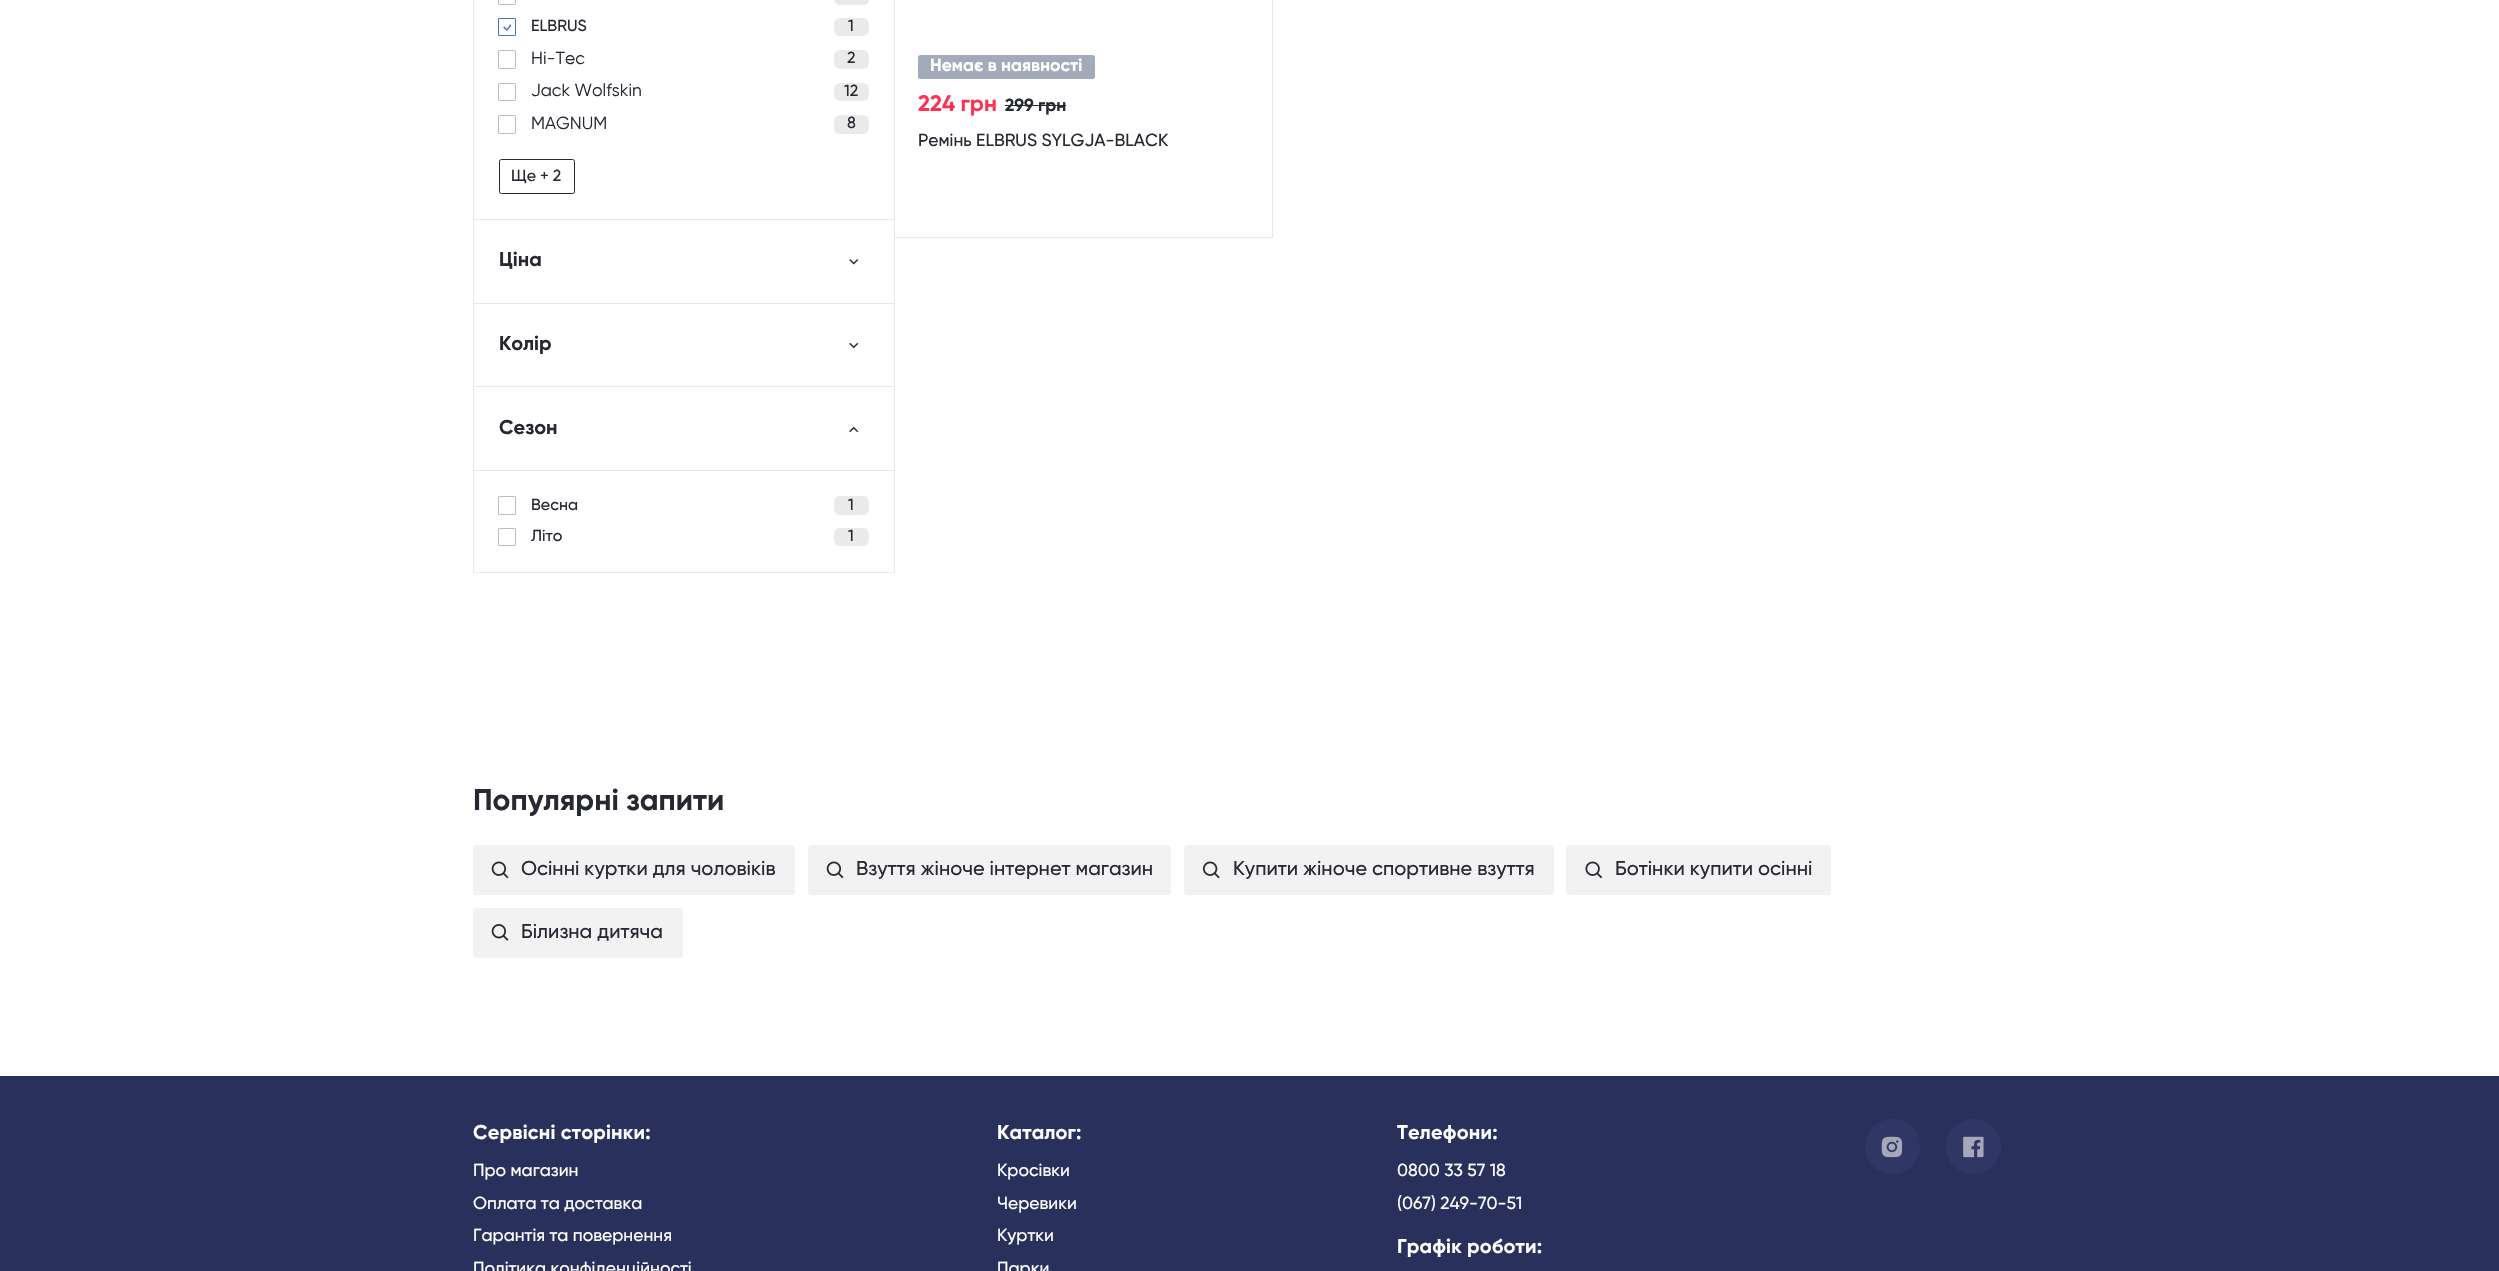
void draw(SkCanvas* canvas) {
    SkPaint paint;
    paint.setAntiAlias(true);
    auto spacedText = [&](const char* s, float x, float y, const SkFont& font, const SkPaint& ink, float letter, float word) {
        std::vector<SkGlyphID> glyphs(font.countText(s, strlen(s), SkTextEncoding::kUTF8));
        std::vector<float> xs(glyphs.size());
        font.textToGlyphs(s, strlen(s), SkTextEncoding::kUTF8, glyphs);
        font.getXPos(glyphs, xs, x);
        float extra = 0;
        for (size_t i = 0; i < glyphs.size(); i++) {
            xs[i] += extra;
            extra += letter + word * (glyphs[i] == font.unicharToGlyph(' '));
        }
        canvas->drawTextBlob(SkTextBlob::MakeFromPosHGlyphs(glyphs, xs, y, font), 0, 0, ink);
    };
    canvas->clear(0xFFFFFFFF);
    paint.setStyle(SkPaint::kStroke_Style);
    paint.setStrokeWidth(1);
    paint.setColor(0xFFE4E8EE);
    canvas->drawRect(SkRect::MakeXYWH(473.5f, -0.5f, 421, 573), paint);
    paint.setStyle(SkPaint::kFill_Style);
    canvas->drawRect(SkRect::MakeXYWH(474, 219, 420, 1), paint);
    paint.setStyle(SkPaint::kStroke_Style);
    paint.setColor(0xFFBDBDBD);
    canvas->drawRoundRect(SkRect::MakeXYWH(498.5f, -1.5f, 17, 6), 0.5f, 0.5f, paint);
    paint.setStyle(SkPaint::kFill_Style);
    paint.setColor(0xFFEAEAEA);
    canvas->drawRoundRect(SkRect::MakeXYWH(834, -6, 35, 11), 6, 6, paint);
    canvas->drawImageRect(SkImages::DeferredFromEncodedData(SkData::MakeFromFileName("img1.png")), SkRect::MakeXYWH(503, 24, 8, 7), SkSamplingOptions());
    paint.setStyle(SkPaint::kStroke_Style);
    paint.setColor(0xFF4173CC);
    canvas->drawRoundRect(SkRect::MakeXYWH(498.5f, 18.5f, 17, 17), 0.5f, 0.5f, paint);
    SkFont font1(fontMgr->matchFamilyStyle("Gilroy", SkFontStyle(500, SkFontStyle::kNormal_Width, SkFontStyle::kUpright_Slant)), 16);
    font1.setSubpixel(true);
    paint.setStyle(SkPaint::kFill_Style);
    paint.setColor(0xFF262832);
    canvas->drawString("ELBRUS", 531, 31, font1, paint);
    paint.setColor(0xFFEAEAEA);
    canvas->drawRoundRect(SkRect::MakeXYWH(834, 18, 35, 18), 6, 6, paint);
    paint.setColor(0xFF262832);
    canvas->drawString("1", 848, 31, font1, paint);
    paint.setStyle(SkPaint::kStroke_Style);
    paint.setColor(0xFFBDBDBD);
    canvas->drawRoundRect(SkRect::MakeXYWH(498.5f, 50.5f, 17, 18), 0.5f, 0.5f, paint);
    SkFont font2(fontMgr->matchFamilyStyle("Gilroy", SkFontStyle::Normal()), 17.5f);
    font2.setSubpixel(true);
    paint.setStyle(SkPaint::kFill_Style);
    paint.setColor(0xFF262832);
    canvas->drawString("Hi-Tec", 531, 64, font2, paint);
    paint.setColor(0xFFEAEAEA);
    canvas->drawRoundRect(SkRect::MakeXYWH(834, 50, 35, 19), 6, 6, paint);
    paint.setColor(0xFF262832);
    canvas->drawString("2", 847, 63, font1, paint);
    paint.setStyle(SkPaint::kStroke_Style);
    paint.setColor(0xFFBDBDBD);
    canvas->drawRoundRect(SkRect::MakeXYWH(498.5f, 83.5f, 17, 17), 0.5f, 0.5f, paint);
    paint.setStyle(SkPaint::kFill_Style);
    paint.setColor(0xFF262832);
    canvas->drawString("Jack Wolfskin", 531, 96, font2, paint);
    paint.setColor(0xFFEAEAEA);
    canvas->drawRoundRect(SkRect::MakeXYWH(834, 83, 35, 18), 6, 6, paint);
    paint.setColor(0xFF262832);
    canvas->drawString("12", 844, 96, font1, paint);
    paint.setStyle(SkPaint::kStroke_Style);
    paint.setColor(0xFFBDBDBD);
    canvas->drawRoundRect(SkRect::MakeXYWH(498.5f, 115.5f, 17, 18), 0.5f, 0.5f, paint);
    paint.setStyle(SkPaint::kFill_Style);
    paint.setColor(0xFF262832);
    canvas->drawString("MAGNUM", 531, 129, font2, paint);
    paint.setColor(0xFFEAEAEA);
    canvas->drawRoundRect(SkRect::MakeXYWH(834, 115, 35, 19), 6, 6, paint);
    paint.setColor(0xFF262832);
    canvas->drawString("8", 847, 128, font1, paint);
    paint.setStyle(SkPaint::kStroke_Style);
    canvas->drawRoundRect(SkRect::MakeXYWH(499.5f, 159.5f, 75, 34), 2, 2, paint);
    paint.setStyle(SkPaint::kFill_Style);
    canvas->drawString("Ще + 2", 511, 181, font1, paint);
    paint.setColor(0xFFE4E8EE);
    canvas->drawRect(SkRect::MakeXYWH(474, 303, 420, 1), paint);
    SkFont font3(fontMgr->matchFamilyStyle("Gilroy", SkFontStyle::Bold()), 20);
    font3.setSubpixel(true);
    paint.setColor(0xFF262832);
    canvas->drawString("Ціна", 499, 266, font3, paint);
    canvas->drawImageRect(SkImages::DeferredFromEncodedData(SkData::MakeFromFileName("img2.png")), SkRect::MakeXYWH(849, 259, 10, 6), SkSamplingOptions());
    paint.setColor(0xFFE4E8EE);
    canvas->drawRect(SkRect::MakeXYWH(474, 386, 420, 1), paint);
    paint.setColor(0xFF262832);
    canvas->drawString("Колір", 499, 350, font3, paint);
    canvas->drawImageRect(SkImages::DeferredFromEncodedData(SkData::MakeFromFileName("img3.png")), SkRect::MakeXYWH(849, 343, 10, 6), SkSamplingOptions());
    paint.setColor(0xFFE4E8EE);
    canvas->drawRect(SkRect::MakeXYWH(474, 470, 420, 1), paint);
    paint.setColor(0xFF262832);
    canvas->drawString("Сезон", 499, 434, font3, paint);
    canvas->drawImageRect(SkImages::DeferredFromEncodedData(SkData::MakeFromFileName("img4.png")), SkRect::MakeXYWH(849, 426, 10, 6), SkSamplingOptions());
    paint.setStyle(SkPaint::kStroke_Style);
    paint.setColor(0xFFBDBDBD);
    canvas->drawRoundRect(SkRect::MakeXYWH(498.5f, 496.5f, 17, 18), 0.5f, 0.5f, paint);
    paint.setStyle(SkPaint::kFill_Style);
    paint.setColor(0xFF262832);
    canvas->drawString("Весна", 531, 510, font1, paint);
    paint.setColor(0xFFEAEAEA);
    canvas->drawRoundRect(SkRect::MakeXYWH(834, 496, 35, 19), 6, 6, paint);
    paint.setColor(0xFF262832);
    canvas->drawString("1", 848, 510, font1, paint);
    paint.setStyle(SkPaint::kStroke_Style);
    paint.setColor(0xFFBDBDBD);
    canvas->drawRoundRect(SkRect::MakeXYWH(498.5f, 528.5f, 17, 17), 0.5f, 0.5f, paint);
    paint.setStyle(SkPaint::kFill_Style);
    paint.setColor(0xFF262832);
    canvas->drawString("Літо", 531, 541, font1, paint);
    paint.setColor(0xFFEAEAEA);
    canvas->drawRoundRect(SkRect::MakeXYWH(834, 528, 35, 18), 6, 6, paint);
    paint.setColor(0xFF262832);
    canvas->drawString("1", 848, 541, font1, paint);
    paint.setStyle(SkPaint::kStroke_Style);
    paint.setColor(0xFFE4E8EE);
    canvas->drawRect(SkRect::MakeXYWH(894.5f, -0.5f, 378, 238), paint);
    paint.setStyle(SkPaint::kFill_Style);
    paint.setColor(0xFFA3AAB9);
    canvas->drawRoundRect(SkRect::MakeXYWH(918, 55, 177, 24), 2.5f, 2.5f, paint);
    SkFont font4(fontMgr->matchFamilyStyle("Gilroy", SkFontStyle::Bold()), 17.5f);
    font4.setSubpixel(true);
    paint.setColor(0xFFFFFFFF);
    canvas->drawString("Немає в наявності", 930, 71, font4, paint);
    SkFont font5(fontMgr->matchFamilyStyle("Gilroy", SkFontStyle::Bold()), 22.5f);
    font5.setSubpixel(true);
    paint.setColor(0xFFFF3152);
    canvas->drawString("224 грн", 918, 111, font5, paint);
    paint.setColor(0xFF262832);
    canvas->drawString("299 грн", 1005, 111, font4, paint);
    canvas->drawRect(SkRect::MakeXYWH(1005, 105, 61, 1), paint);
    SkFont font6(fontMgr->matchFamilyStyle("Gilroy", SkFontStyle(500, SkFontStyle::kNormal_Width, SkFontStyle::kUpright_Slant)), 17.5f);
    font6.setSubpixel(true);
    canvas->drawString("Ремінь ELBRUS SYLGJA-BLACK", 918, 146, font6, paint);
    SkFont font7(fontMgr->matchFamilyStyle("Gilroy", SkFontStyle::Bold()), 30);
    font7.setSubpixel(true);
    canvas->drawString("Популярні запити", 473, 810, font7, paint);
    paint.setColor(0xFFF2F2F2);
    canvas->drawRoundRect(SkRect::MakeXYWH(473, 845, 322, 50), 4, 4, paint);
    canvas->drawImageRect(SkImages::DeferredFromEncodedData(SkData::MakeFromFileName("img5.png")), SkRect::MakeXYWH(491, 861, 18, 18), SkSamplingOptions());
    SkFont font8(fontMgr->matchFamilyStyle("Gilroy", SkFontStyle(500, SkFontStyle::kNormal_Width, SkFontStyle::kUpright_Slant)), 20);
    font8.setSubpixel(true);
    paint.setColor(0xFF262832);
    canvas->drawString("Осінні куртки для чоловіків", 521, 875, font8, paint);
    paint.setColor(0xFFF2F2F2);
    canvas->drawRoundRect(SkRect::MakeXYWH(808, 845, 363, 50), 4, 4, paint);
    canvas->drawImageRect(SkImages::DeferredFromEncodedData(SkData::MakeFromFileName("img5.png")), SkRect::MakeXYWH(826, 861, 18, 18), SkSamplingOptions());
    paint.setColor(0xFF262832);
    canvas->drawString("Взуття жіноче інтернет магазин", 856, 875, font8, paint);
    paint.setColor(0xFFF2F2F2);
    canvas->drawRoundRect(SkRect::MakeXYWH(1184, 845, 370, 50), 4, 4, paint);
    canvas->drawImageRect(SkImages::DeferredFromEncodedData(SkData::MakeFromFileName("img6.png")), SkRect::MakeXYWH(1202, 861, 18, 18), SkSamplingOptions());
    paint.setColor(0xFF262832);
    canvas->drawString("Купити жіноче спортивне взуття", 1233, 875, font8, paint);
    paint.setColor(0xFFF2F2F2);
    canvas->drawRoundRect(SkRect::MakeXYWH(1566, 845, 265, 50), 4, 4, paint);
    canvas->drawImageRect(SkImages::DeferredFromEncodedData(SkData::MakeFromFileName("img7.png")), SkRect::MakeXYWH(1585, 861, 18, 18), SkSamplingOptions());
    paint.setColor(0xFF262832);
    canvas->drawString("Ботінки купити осінні", 1615, 875, font8, paint);
    paint.setColor(0xFFF2F2F2);
    canvas->drawRoundRect(SkRect::MakeXYWH(473, 908, 210, 50), 4, 4, paint);
    canvas->drawImageRect(SkImages::DeferredFromEncodedData(SkData::MakeFromFileName("img8.png")), SkRect::MakeXYWH(491, 924, 18, 17), SkSamplingOptions());
    paint.setColor(0xFF262832);
    canvas->drawString("Білизна дитяча", 521, 938, font8, paint);
    paint.setColor(0xFF29305B);
    canvas->drawRect(SkRect::MakeXYWH(0, 1076, 2499, 195), paint);
    paint.setColor(0xFFFFFFFF);
    spacedText("Сервісні сторінки:", 473, 1139, font3, paint, 0.2f, 0);
    canvas->drawString("Про магазин", 473, 1176, font6, paint);
    canvas->drawString("Оплата та доставка", 473, 1209, font6, paint);
    canvas->drawString("Гарантія та повернення", 473, 1241, font6, paint);
    canvas->drawString("Політика конфіденційності", 473, 1274, font6, paint);
    spacedText("Каталог:", 997, 1139, font3, paint, 0.2f, 0);
    canvas->drawString("Кросівки", 997, 1176, font6, paint);
    canvas->drawString("Черевики", 997, 1209, font6, paint);
    canvas->drawString("Куртки", 997, 1241, font6, paint);
    canvas->drawString("Парки", 997, 1274, font6, paint);
    spacedText("Телефони:", 1397, 1139, font3, paint, 0.2f, 0);
    canvas->drawString("0800 33 57 18", 1397, 1176, font6, paint);
    canvas->drawString("(067) 249-70-51", 1397, 1209, font6, paint);
    spacedText("Графік роботи:", 1397, 1253, font3, paint, 0.2f, 0);
    paint.setColor(0xFF303765);
    canvas->drawCircle(1892.5f, 1146.5f, 27.5f, paint);
    canvas->drawImageRect(SkImages::DeferredFromEncodedData(SkData::MakeFromFileName("img9.png")), SkRect::MakeXYWH(1881, 1136, 22, 22), SkSamplingOptions());
    canvas->drawCircle(1973.5f, 1146.5f, 27.5f, paint);
    canvas->drawImageRect(SkImages::DeferredFromEncodedData(SkData::MakeFromFileName("img10.png")), SkRect::MakeXYWH(1963, 1136, 21, 22), SkSamplingOptions());
}
